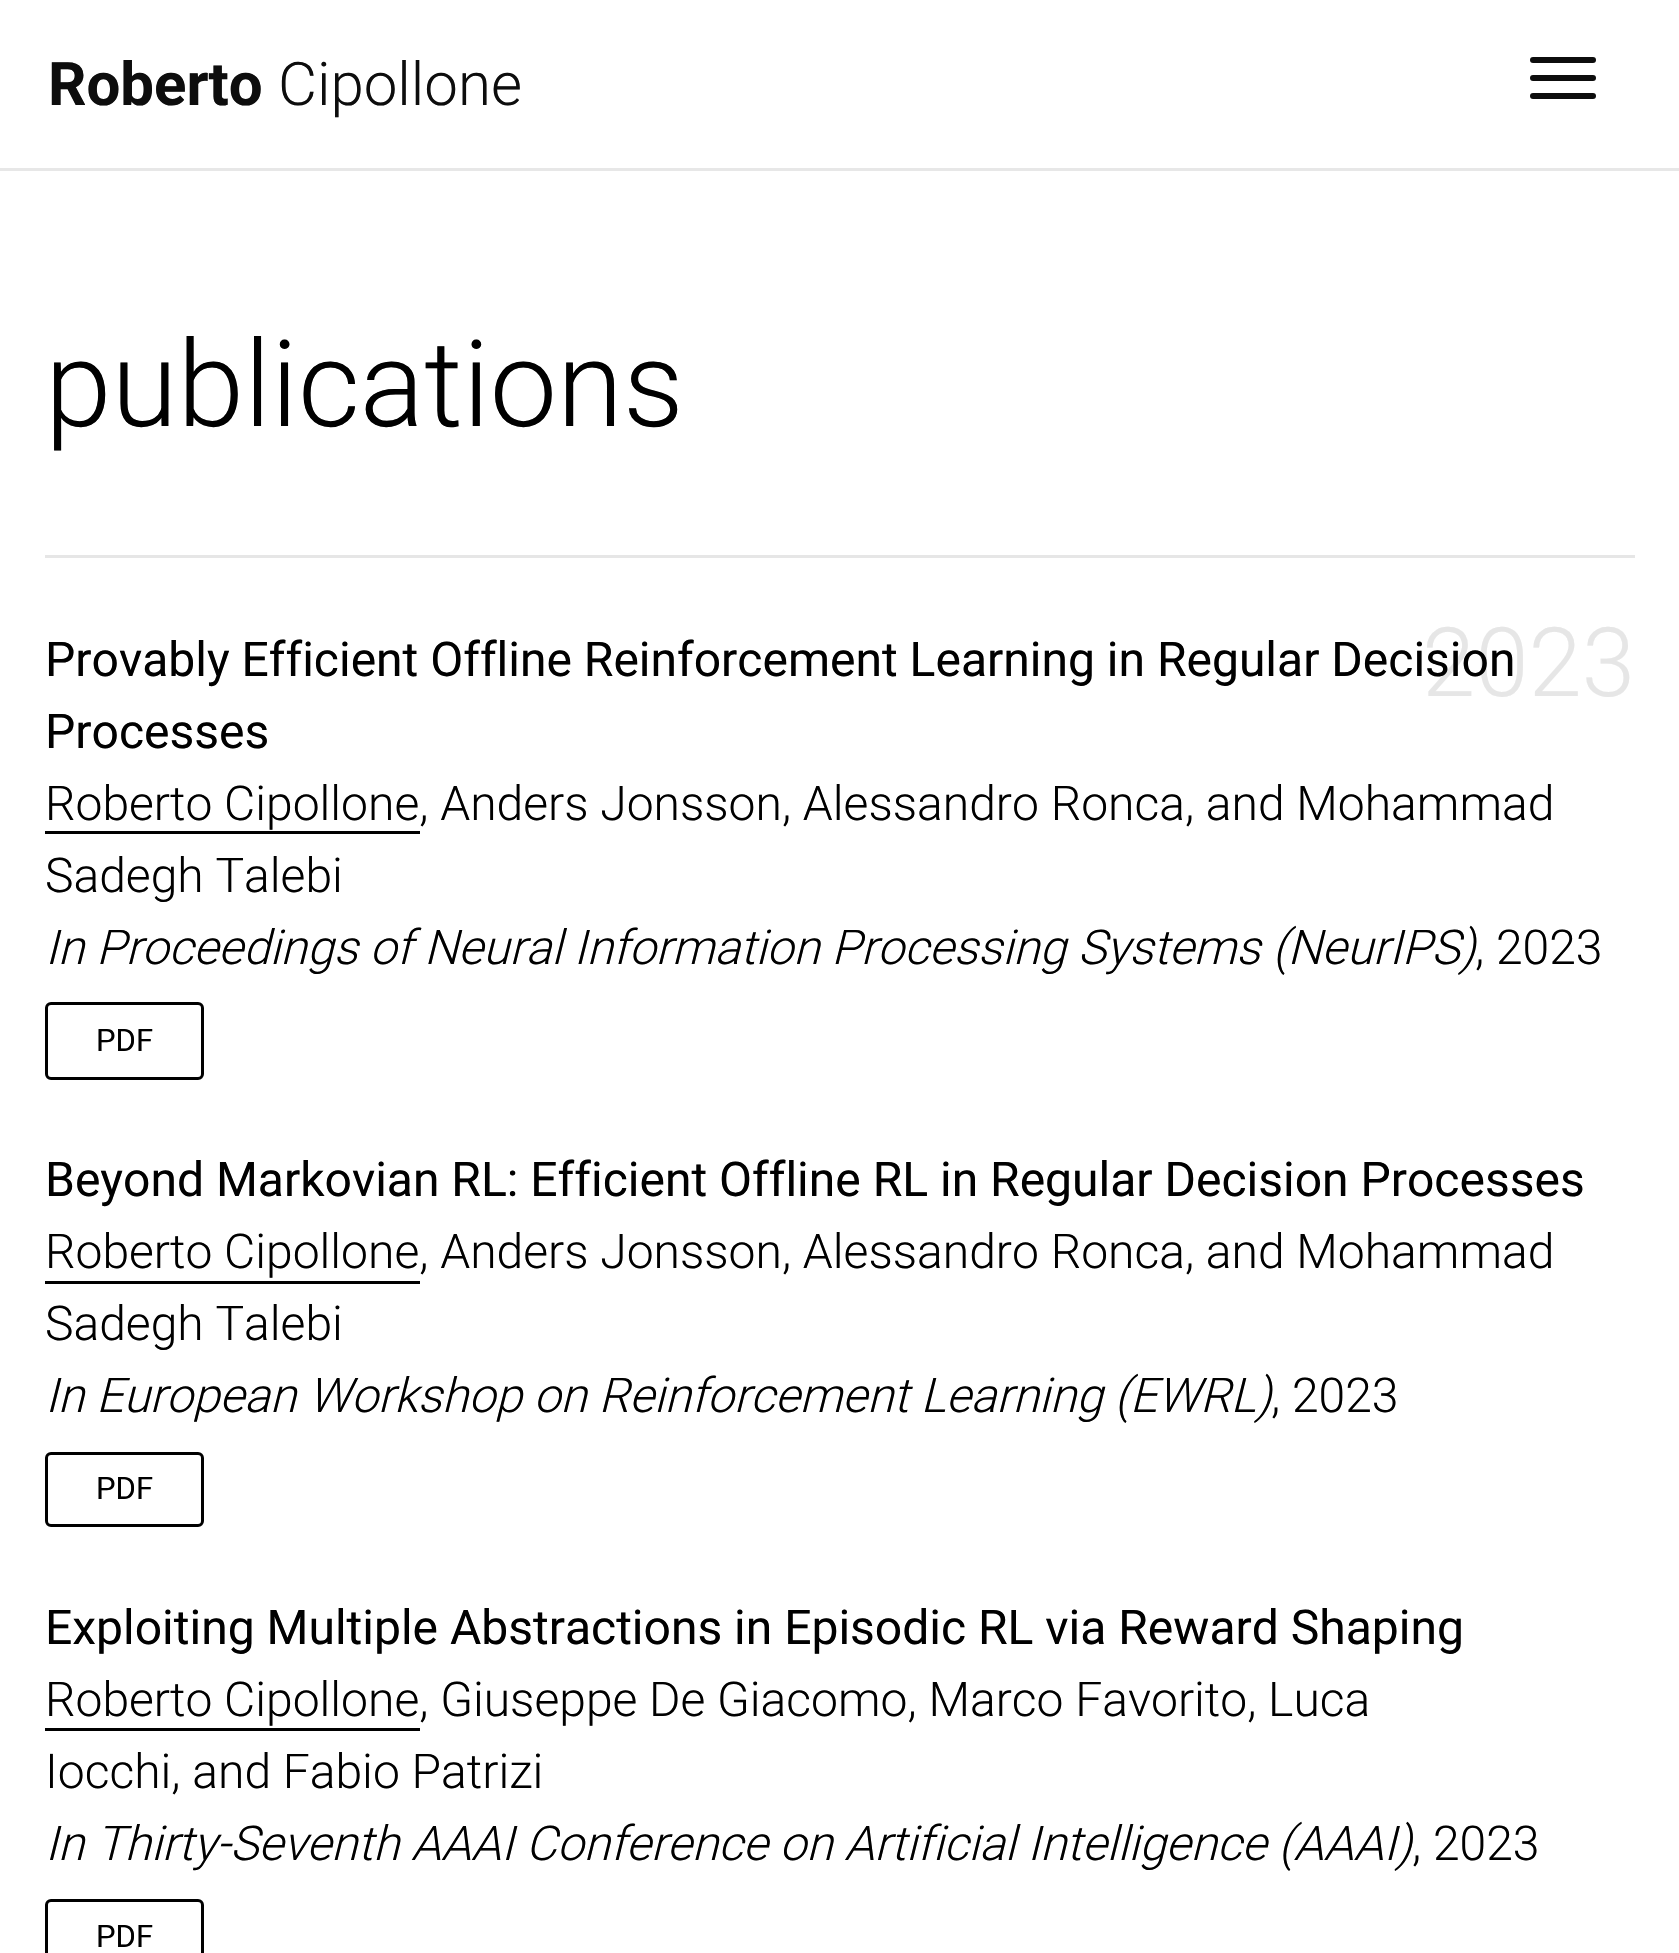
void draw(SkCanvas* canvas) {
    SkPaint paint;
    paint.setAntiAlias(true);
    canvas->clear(0xFFFFFFFF);
    paint.setColor(0xFFE7E7E7);
    canvas->drawRect(SkRect::MakeXYWH(0, 168, 1679, 3), paint);
    SkFont font1(fontMgr->matchFamilyStyle("Roboto", SkFontStyle::Bold()), 60);
    font1.setSubpixel(true);
    paint.setColor(0xFF0D0D0D);
    canvas->drawString("Roberto", 48, 105, font1, paint);
    SkFont font2(fontMgr->matchFamilyStyle("Roboto", SkFontStyle(300, SkFontStyle::kNormal_Width, SkFontStyle::kUpright_Slant)), 60);
    font2.setSubpixel(true);
    canvas->drawString("Cipollone", 278, 105, font2, paint);
    canvas->drawRoundRect(SkRect::MakeXYWH(1530, 57, 66, 6), 3, 3, paint);
    canvas->drawRoundRect(SkRect::MakeXYWH(1530, 75, 66, 6), 3, 3, paint);
    canvas->drawRoundRect(SkRect::MakeXYWH(1530, 93, 66, 6), 3, 3, paint);
    SkFont font3(fontMgr->matchFamilyStyle("Roboto", SkFontStyle(300, SkFontStyle::kNormal_Width, SkFontStyle::kUpright_Slant)), 120);
    font3.setSubpixel(true);
    paint.setColor(0xFF000000);
    canvas->drawString("publications", 45, 426, font3, paint);
    paint.setColor(0xFFE6E6E6);
    canvas->drawRect(SkRect::MakeXYWH(45, 555, 1590, 3), paint);
    SkFont font4(fontMgr->matchFamilyStyle("Roboto", SkFontStyle(300, SkFontStyle::kNormal_Width, SkFontStyle::kUpright_Slant)), 96);
    font4.setSubpixel(true);
    canvas->drawString("2023", 1422, 696, font4, paint);
    SkFont font5(fontMgr->matchFamilyStyle("Roboto", SkFontStyle::Normal()), 48);
    font5.setSubpixel(true);
    paint.setColor(0xFF000000);
    canvas->drawString("Provably Efficient Offline Reinforcement Learning in Regular Decision", 45, 676, font5, paint);
    canvas->drawString("Processes", 45, 748, font5, paint);
    SkFont font6(fontMgr->matchFamilyStyle("Roboto", SkFontStyle(300, SkFontStyle::kNormal_Width, SkFontStyle::kUpright_Slant)), 48);
    font6.setSubpixel(true);
    canvas->drawString("Roberto Cipollone, Anders Jonsson, Alessandro Ronca, and Mohammad", 45, 820, font6, paint);
    canvas->drawRect(SkRect::MakeXYWH(45, 831, 375, 3), paint);
    canvas->drawString("Sadegh Talebi", 45, 892, font6, paint);
    SkFont font7(fontMgr->matchFamilyStyle("Roboto", SkFontStyle(300, SkFontStyle::kNormal_Width, SkFontStyle::kItalic_Slant)), 48);
    font7.setSubpixel(true);
    canvas->drawString("In Proceedings of Neural Information Processing Systems (NeurIPS)", 45, 964, font7, paint);
    canvas->drawString(", 2023", 1475, 964, font6, paint);
    paint.setStyle(SkPaint::kStroke_Style);
    paint.setStrokeWidth(3);
    canvas->drawRoundRect(SkRect::MakeXYWH(46.5f, 1003.5f, 156, 75), 4.5f, 4.5f, paint);
    SkFont font8(fontMgr->matchFamilyStyle("Roboto", SkFontStyle::Normal()), 31);
    font8.setSubpixel(true);
    paint.setStyle(SkPaint::kFill_Style);
    canvas->drawString("PDF", 96, 1051, font8, paint);
    canvas->drawString("Beyond Markovian RL: Efficient Offline RL in Regular Decision Processes", 45, 1196, font5, paint);
    canvas->drawString("Roberto Cipollone, Anders Jonsson, Alessandro Ronca, and Mohammad", 45, 1268, font6, paint);
    canvas->drawRect(SkRect::MakeXYWH(45, 1281, 375, 3), paint);
    canvas->drawString("Sadegh Talebi", 45, 1340, font6, paint);
    canvas->drawString("In European Workshop on Reinforcement Learning (EWRL)", 45, 1412, font7, paint);
    canvas->drawString(", 2023", 1271, 1412, font6, paint);
    paint.setStyle(SkPaint::kStroke_Style);
    canvas->drawRoundRect(SkRect::MakeXYWH(46.5f, 1453.5f, 156, 72), 4.5f, 4.5f, paint);
    paint.setStyle(SkPaint::kFill_Style);
    canvas->drawString("PDF", 96, 1499, font8, paint);
    canvas->drawString("Exploiting Multiple Abstractions in Episodic RL via Reward Shaping", 45, 1644, font5, paint);
    canvas->drawString("Roberto Cipollone, Giuseppe De Giacomo, Marco Favorito, Luca", 45, 1716, font6, paint);
    canvas->drawRect(SkRect::MakeXYWH(45, 1728, 375, 3), paint);
    canvas->drawString("Iocchi, and Fabio Patrizi", 45, 1788, font6, paint);
    canvas->drawString("In Thirty-Seventh AAAI Conference on Artificial Intelligence (AAAI)", 45, 1860, font7, paint);
    canvas->drawString(", 2023", 1412, 1860, font6, paint);
    paint.setStyle(SkPaint::kStroke_Style);
    canvas->drawRoundRect(SkRect::MakeXYWH(46.5f, 1900.5f, 156, 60), 4.5f, 4.5f, paint);
    paint.setStyle(SkPaint::kFill_Style);
    canvas->drawString("PDF", 96, 1947, font8, paint);
}
